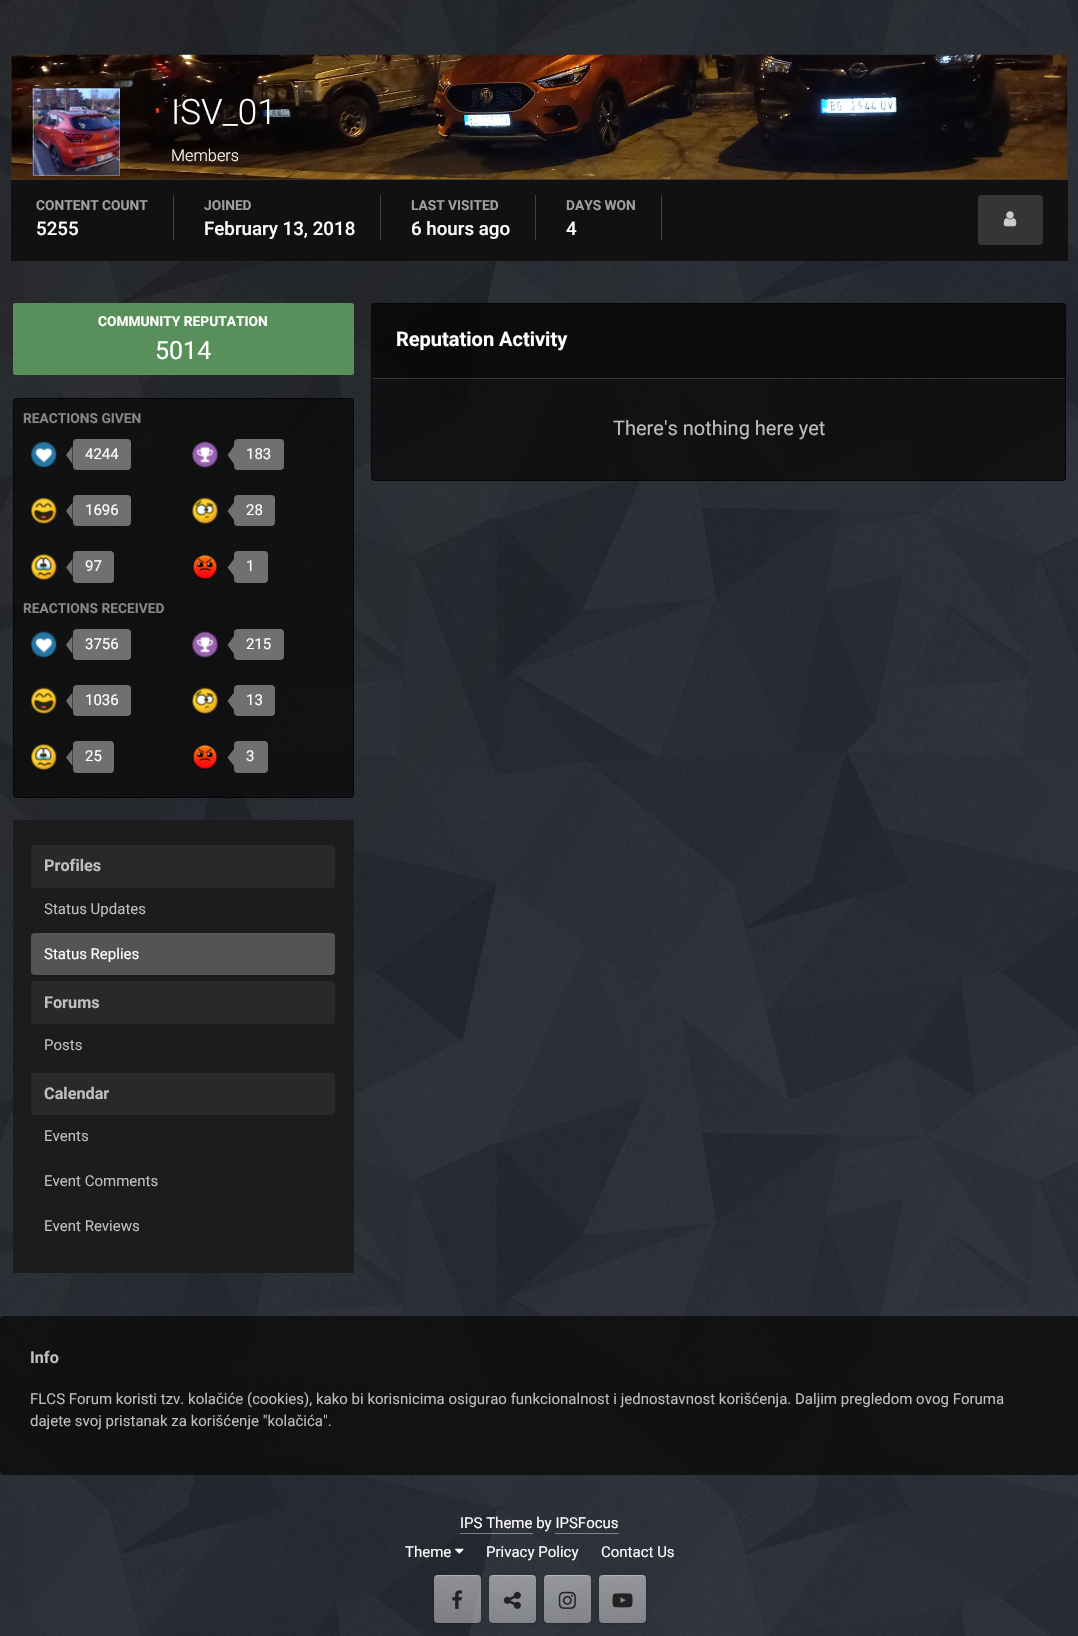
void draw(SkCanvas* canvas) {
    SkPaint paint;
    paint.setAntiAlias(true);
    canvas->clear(0xFFFFFFFF);
    {
        const SkColor colors[] = {0xFF1E232E, 0xFF14161A};
        const float stops[] = {0, 1};
        const SkPoint ends[] = {{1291, 1314}, {-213, 322}};
        paint.setShader(SkGradientShader::MakeLinear(ends, colors, stops, 2, SkTileMode::kClamp));
        paint.setAlpha(255);
    }
    canvas->drawRect(SkRect::MakeXYWH(0, 0, 1078, 1636), paint);
    canvas->drawImageRect(SkImages::DeferredFromEncodedData(SkData::MakeFromFileName("img1.png")), SkRect::MakeXYWH(0, 0, 1078, 1636), SkSamplingOptions());
    paint.setShader(nullptr);
    paint.setColor(0xFF333333);
    canvas->drawRect(SkRect::MakeXYWH(11, 55, 1057, 125), paint);
    canvas->drawImageRect(SkImages::DeferredFromEncodedData(SkData::MakeFromFileName("img2.png")), SkRect::MakeXYWH(11, 54, 1057, 126), SkSamplingOptions());
    canvas->drawImageRect(SkImages::DeferredFromEncodedData(SkData::MakeFromFileName("img3.png")), SkRect::MakeXYWH(32, 88, 88, 88), SkSamplingOptions());
    paint.setStyle(SkPaint::kStroke_Style);
    paint.setStrokeWidth(1);
    paint.setColor(0x4DFFFFFF);
    canvas->drawRect(SkRect::MakeXYWH(33.5f, 89.5f, 86, 86), paint);
    SkFont font1(fontMgr->matchFamilyStyle("Roboto", SkFontStyle(300, SkFontStyle::kNormal_Width, SkFontStyle::kUpright_Slant)), 35);
    font1.setSubpixel(true);
    paint.setStyle(SkPaint::kFill_Style);
    paint.setColor(0xFFFFFFFF);
    canvas->drawString("ISV_01", 171, 124, font1, paint);
    SkFont font2(fontMgr->matchFamilyStyle("Roboto", SkFontStyle(300, SkFontStyle::kNormal_Width, SkFontStyle::kUpright_Slant)), 16.25f);
    font2.setSubpixel(true);
    canvas->drawString("Members", 171, 161, font2, paint);
    paint.setColor(0xFF111111);
    canvas->drawRect(SkRect::MakeXYWH(11, 180, 1057, 81), paint);
    paint.setColor(0xFF414141);
    canvas->drawRect(SkRect::MakeXYWH(173, 195, 1, 45), paint);
    SkFont font3(fontMgr->matchFamilyStyle("Roboto", SkFontStyle::Bold()), 13.75f);
    font3.setSubpixel(true);
    paint.setColor(0xFFA0A0A0);
    canvas->drawString("CONTENT COUNT", 36, 210, font3, paint);
    SkFont font4(fontMgr->matchFamilyStyle("Roboto", SkFontStyle(500, SkFontStyle::kNormal_Width, SkFontStyle::kUpright_Slant)), 18.75f);
    font4.setSubpixel(true);
    paint.setColor(0xFFFFFFFF);
    canvas->drawString("5255", 36, 235, font4, paint);
    paint.setColor(0xFF414141);
    canvas->drawRect(SkRect::MakeXYWH(380, 195, 1, 45), paint);
    paint.setColor(0xFFA0A0A0);
    canvas->drawString("JOINED", 204, 210, font3, paint);
    paint.setColor(0xFFFFFFFF);
    canvas->drawString("February 13, 2018", 204, 235, font4, paint);
    paint.setColor(0xFF414141);
    canvas->drawRect(SkRect::MakeXYWH(535, 195, 1, 45), paint);
    paint.setColor(0xFFA0A0A0);
    canvas->drawString("LAST VISITED", 411, 210, font3, paint);
    paint.setColor(0xFFFFFFFF);
    canvas->drawString("6 hours ago", 411, 235, font4, paint);
    paint.setColor(0xFF414141);
    canvas->drawRect(SkRect::MakeXYWH(661, 195, 1, 45), paint);
    paint.setColor(0xFFA0A0A0);
    canvas->drawString("DAYS WON", 566, 210, font3, paint);
    paint.setColor(0xFFFFFFFF);
    canvas->drawString("4", 566, 235, font4, paint);
    paint.setColor(0xFF353535);
    canvas->drawRoundRect(SkRect::MakeXYWH(978, 195, 65, 50), 4, 4, paint);
    canvas->drawImageRect(SkImages::DeferredFromEncodedData(SkData::MakeFromFileName("img4.png")), SkRect::MakeXYWH(1003, 211, 14, 16), SkSamplingOptions());
    paint.setColor(0xFF598F5B);
    canvas->drawRoundRect(SkRect::MakeXYWH(13, 303, 341, 72), 2.5f, 2.5f, paint);
    paint.setColor(0xFFFFFFFF);
    canvas->drawString("COMMUNITY REPUTATION", 98, 326, font3, paint);
    SkFont font5(fontMgr->matchFamilyStyle("Roboto", SkFontStyle::Normal()), 25);
    font5.setSubpixel(true);
    canvas->drawString("5014", 155, 359, font5, paint);
    paint.setColor(0xCC0A0A0A);
    canvas->drawRoundRect(SkRect::MakeXYWH(13, 398, 341, 400), 4, 4, paint);
    paint.setStyle(SkPaint::kStroke_Style);
    paint.setColor(0xB3000000);
    canvas->drawRoundRect(SkRect::MakeXYWH(13.5f, 398.5f, 340, 399), 3.5f, 3.5f, paint);
    paint.setStyle(SkPaint::kFill_Style);
    paint.setColor(0xFF878787);
    canvas->drawString("REACTIONS GIVEN", 23, 423, font3, paint);
    canvas->drawImageRect(SkImages::DeferredFromEncodedData(SkData::MakeFromFileName("img5.png")), SkRect::MakeXYWH(31, 441, 26, 27), SkSamplingOptions());
    paint.setColor(0xFF707070);
    canvas->drawRoundRect(SkRect::MakeXYWH(73, 439, 58, 31), 4, 4, paint);
    canvas->drawPath(SkPathBuilder().moveTo(72.5f, 446).lineTo(72.5f, 464).lineTo(66, 455).close().detach(), paint);
    SkFont font6(fontMgr->matchFamilyStyle("Roboto", SkFontStyle::Normal()), 15);
    font6.setSubpixel(true);
    paint.setColor(0xFFFFFFFF);
    canvas->drawString("4244", 85, 459, font6, paint);
    canvas->drawImageRect(SkImages::DeferredFromEncodedData(SkData::MakeFromFileName("img6.png")), SkRect::MakeXYWH(192, 441, 26, 27), SkSamplingOptions());
    paint.setColor(0xFF707070);
    canvas->drawRoundRect(SkRect::MakeXYWH(234, 439, 50, 31), 4, 4, paint);
    canvas->drawPath(SkPathBuilder().moveTo(234, 446).lineTo(234, 464).lineTo(227.5f, 455).close().detach(), paint);
    paint.setColor(0xFFFFFFFF);
    canvas->drawString("183", 246, 459, font6, paint);
    canvas->drawImageRect(SkImages::DeferredFromEncodedData(SkData::MakeFromFileName("img7.png")), SkRect::MakeXYWH(31, 497, 26, 27), SkSamplingOptions());
    paint.setColor(0xFF707070);
    canvas->drawRoundRect(SkRect::MakeXYWH(73, 495, 58, 31), 4, 4, paint);
    canvas->drawPath(SkPathBuilder().moveTo(72.5f, 502.5f).lineTo(72.5f, 520).lineTo(66, 511).close().detach(), paint);
    paint.setColor(0xFFFFFFFF);
    canvas->drawString("1696", 85, 515, font6, paint);
    canvas->drawImageRect(SkImages::DeferredFromEncodedData(SkData::MakeFromFileName("img8.png")), SkRect::MakeXYWH(192, 497, 26, 27), SkSamplingOptions());
    paint.setColor(0xFF707070);
    canvas->drawRoundRect(SkRect::MakeXYWH(234, 495, 41, 31), 4, 4, paint);
    canvas->drawPath(SkPathBuilder().moveTo(234, 502.5f).lineTo(234, 520).lineTo(227.5f, 511).close().detach(), paint);
    paint.setColor(0xFFFFFFFF);
    canvas->drawString("28", 246, 515, font6, paint);
    canvas->drawImageRect(SkImages::DeferredFromEncodedData(SkData::MakeFromFileName("img9.png")), SkRect::MakeXYWH(31, 553, 26, 27), SkSamplingOptions());
    paint.setColor(0xFF707070);
    canvas->drawRoundRect(SkRect::MakeXYWH(73, 551, 41, 32), 4, 4, paint);
    canvas->drawPath(SkPathBuilder().moveTo(72.5f, 559).lineTo(72.5f, 576).lineTo(66, 567.5f).close().detach(), paint);
    paint.setColor(0xFFFFFFFF);
    canvas->drawString("97", 85, 571, font6, paint);
    canvas->drawImageRect(SkImages::DeferredFromEncodedData(SkData::MakeFromFileName("img10.png")), SkRect::MakeXYWH(192, 554, 26, 26), SkSamplingOptions());
    paint.setColor(0xFF707070);
    canvas->drawRoundRect(SkRect::MakeXYWH(234, 551, 34, 32), 4, 4, paint);
    canvas->drawPath(SkPathBuilder().moveTo(234, 559).lineTo(234, 576).lineTo(227.5f, 567.5f).close().detach(), paint);
    paint.setColor(0xFFFFFFFF);
    canvas->drawString("1", 246, 571, font6, paint);
    paint.setColor(0xFF878787);
    canvas->drawString("REACTIONS RECEIVED", 23, 613, font3, paint);
    canvas->drawImageRect(SkImages::DeferredFromEncodedData(SkData::MakeFromFileName("img11.png")), SkRect::MakeXYWH(31, 631, 26, 27), SkSamplingOptions());
    paint.setColor(0xFF707070);
    canvas->drawRoundRect(SkRect::MakeXYWH(73, 629, 58, 31), 4, 4, paint);
    canvas->drawPath(SkPathBuilder().moveTo(72.5f, 636).lineTo(72.5f, 654).lineTo(66, 645).close().detach(), paint);
    paint.setColor(0xFFFFFFFF);
    canvas->drawString("3756", 85, 649, font6, paint);
    canvas->drawImageRect(SkImages::DeferredFromEncodedData(SkData::MakeFromFileName("img12.png")), SkRect::MakeXYWH(192, 631, 26, 27), SkSamplingOptions());
    paint.setColor(0xFF707070);
    canvas->drawRoundRect(SkRect::MakeXYWH(234, 629, 50, 31), 4, 4, paint);
    canvas->drawPath(SkPathBuilder().moveTo(234, 636).lineTo(234, 654).lineTo(227.5f, 645).close().detach(), paint);
    paint.setColor(0xFFFFFFFF);
    canvas->drawString("215", 246, 649, font6, paint);
    canvas->drawImageRect(SkImages::DeferredFromEncodedData(SkData::MakeFromFileName("img13.png")), SkRect::MakeXYWH(31, 687, 26, 27), SkSamplingOptions());
    paint.setColor(0xFF707070);
    canvas->drawRoundRect(SkRect::MakeXYWH(73, 685, 58, 31), 4, 4, paint);
    canvas->drawPath(SkPathBuilder().moveTo(72.5f, 692.5f).lineTo(72.5f, 710).lineTo(66, 701).close().detach(), paint);
    paint.setColor(0xFFFFFFFF);
    canvas->drawString("1036", 85, 705, font6, paint);
    canvas->drawImageRect(SkImages::DeferredFromEncodedData(SkData::MakeFromFileName("img14.png")), SkRect::MakeXYWH(192, 687, 26, 27), SkSamplingOptions());
    paint.setColor(0xFF707070);
    canvas->drawRoundRect(SkRect::MakeXYWH(234, 685, 41, 31), 4, 4, paint);
    canvas->drawPath(SkPathBuilder().moveTo(234, 692.5f).lineTo(234, 710).lineTo(227.5f, 701).close().detach(), paint);
    paint.setColor(0xFFFFFFFF);
    canvas->drawString("13", 246, 705, font6, paint);
    canvas->drawImageRect(SkImages::DeferredFromEncodedData(SkData::MakeFromFileName("img15.png")), SkRect::MakeXYWH(31, 743, 26, 27), SkSamplingOptions());
    paint.setColor(0xFF707070);
    canvas->drawRoundRect(SkRect::MakeXYWH(73, 741, 41, 32), 4, 4, paint);
    canvas->drawPath(SkPathBuilder().moveTo(72.5f, 749).lineTo(72.5f, 766).lineTo(66, 757.5f).close().detach(), paint);
    paint.setColor(0xFFFFFFFF);
    canvas->drawString("25", 85, 761, font6, paint);
    canvas->drawImageRect(SkImages::DeferredFromEncodedData(SkData::MakeFromFileName("img16.png")), SkRect::MakeXYWH(192, 744, 26, 26), SkSamplingOptions());
    paint.setColor(0xFF707070);
    canvas->drawRoundRect(SkRect::MakeXYWH(234, 741, 34, 32), 4, 4, paint);
    canvas->drawPath(SkPathBuilder().moveTo(234, 749).lineTo(234, 766).lineTo(227.5f, 757.5f).close().detach(), paint);
    paint.setColor(0xFFFFFFFF);
    canvas->drawString("3", 246, 761, font6, paint);
    paint.setColor(0xFF1C1C1C);
    canvas->drawRect(SkRect::MakeXYWH(13, 820, 341, 453), paint);
    paint.setColor(0xFF292929);
    canvas->drawRoundRect(SkRect::MakeXYWH(31, 845, 304, 43), 4, 4, paint);
    SkFont font7(fontMgr->matchFamilyStyle("Roboto", SkFontStyle::Bold()), 16.25f);
    font7.setSubpixel(true);
    paint.setColor(0xFFBFBFBF);
    canvas->drawString("Profiles", 44, 871, font7, paint);
    canvas->drawString("Status Updates", 44, 914, font6, paint);
    paint.setColor(0xFF545454);
    canvas->drawRoundRect(SkRect::MakeXYWH(31, 933, 304, 42), 4, 4, paint);
    paint.setColor(0xFFFFFFFF);
    canvas->drawString("Status Replies", 44, 959, font6, paint);
    paint.setColor(0xFF292929);
    canvas->drawRoundRect(SkRect::MakeXYWH(31, 981, 304, 43), 4, 4, paint);
    paint.setColor(0xFFBFBFBF);
    canvas->drawString("Forums", 44, 1008, font7, paint);
    canvas->drawString("Posts", 44, 1050, font6, paint);
    paint.setColor(0xFF292929);
    canvas->drawRoundRect(SkRect::MakeXYWH(31, 1073, 304, 42), 4, 4, paint);
    paint.setColor(0xFFBFBFBF);
    canvas->drawString("Calendar", 44, 1099, font7, paint);
    canvas->drawString("Events", 44, 1141, font6, paint);
    canvas->drawString("Event Comments", 44, 1186, font6, paint);
    canvas->drawString("Event Reviews", 44, 1231, font6, paint);
    paint.setColor(0xCC0A0A0A);
    canvas->drawRoundRect(SkRect::MakeXYWH(371, 303, 695, 178), 4, 4, paint);
    paint.setStyle(SkPaint::kStroke_Style);
    paint.setColor(0xB3000000);
    canvas->drawRoundRect(SkRect::MakeXYWH(371.5f, 303.5f, 694, 177), 3.5f, 3.5f, paint);
    paint.setStyle(SkPaint::kFill_Style);
    paint.setColor(0x26FFFFFF);
    canvas->drawRect(SkRect::MakeXYWH(373, 378, 692, 1), paint);
    paint.setColor(0x59000000);
    canvas->drawPath(SkPathBuilder().moveTo(377, 304).lineTo(1061, 304).cubicTo(1063, 304, 1065, 306, 1065, 308).lineTo(1065, 378).lineTo(373, 378).lineTo(373, 308).cubicTo(373, 306, 375, 304, 377, 304).close().detach(), paint);
    SkFont font8(fontMgr->matchFamilyStyle("Roboto", SkFontStyle::Bold()), 20);
    font8.setSubpixel(true);
    paint.setColor(0xFFFFFFFF);
    canvas->drawString("Reputation Activity", 396, 346, font8, paint);
    SkFont font9(fontMgr->matchFamilyStyle("Roboto", SkFontStyle::Normal()), 20);
    font9.setSubpixel(true);
    paint.setColor(0xFFBFBFBF);
    canvas->drawString("There's nothing here yet", 613, 435, font9, paint);
    paint.setColor(0xCC0A0A0A);
    canvas->drawRoundRect(SkRect::MakeXYWH(0, 1316, 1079, 159), 4, 4, paint);
    paint.setColor(0xFFBFBFBF);
    canvas->drawString("Info", 30, 1363, font7, paint);
    canvas->drawString("FLCS Forum koristi tzv. kolačiće (cookies), kako bi korisnicima osigurao funkcionalnost i jednostavnost korišćenja. Daljim pregledom ovog Foruma", 30, 1404, font6, paint);
    canvas->drawString("dajete svoj pristanak za korišćenje \"kolačića\".", 30, 1426, font6, paint);
    paint.setColor(0xFFFFFFFF);
    canvas->drawString("IPS Theme by IPSFocus", 460, 1528, font6, paint);
    paint.setColor(0x66FFFFFF);
    canvas->drawRect(SkRect::MakeXYWH(460, 1533, 73, 1), paint);
    canvas->drawRect(SkRect::MakeXYWH(555, 1533, 64, 1), paint);
    paint.setColor(0xFFFFFFFF);
    canvas->drawString("Theme", 405, 1557, font6, paint);
    canvas->drawImageRect(SkImages::DeferredFromEncodedData(SkData::MakeFromFileName("img17.png")), SkRect::MakeXYWH(455, 1548, 9, 6), SkSamplingOptions());
    canvas->drawString("Privacy Policy", 486, 1557, font6, paint);
    canvas->drawString("Contact Us", 601, 1557, font6, paint);
    canvas->save();
    canvas->clipPath(SkPathBuilder(SkPathFillType::kEvenOdd).moveTo(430, 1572).lineTo(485, 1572).lineTo(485, 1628).lineTo(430, 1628).close().moveTo(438, 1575).lineTo(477, 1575).cubicTo(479, 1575, 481, 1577, 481, 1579).lineTo(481, 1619).cubicTo(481, 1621, 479, 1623, 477, 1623).lineTo(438, 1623).cubicTo(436, 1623, 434, 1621, 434, 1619).lineTo(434, 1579).cubicTo(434, 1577, 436, 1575, 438, 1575).close().detach(), true);
    paint.setColor(0x40000000);
    paint.setMaskFilter(SkMaskFilter::MakeBlur(kNormal_SkBlurStyle, 1));
    canvas->drawRoundRect(SkRect::MakeXYWH(434, 1576, 47, 48), 4, 4, paint);
    paint.setMaskFilter(nullptr);
    canvas->restore();
    paint.setColor(0x66FFFFFF);
    canvas->drawRoundRect(SkRect::MakeXYWH(434, 1575, 47, 48), 4, 4, paint);
    {
        const SkColor colors[] = {0x26FFFFFF, 0x00FFFFFF};
        const float stops[] = {0, 1};
        const SkPoint ends[] = {{458, 1575}, {458, 1623}};
        paint.setShader(SkGradientShader::MakeLinear(ends, colors, stops, 2, SkTileMode::kClamp));
        paint.setAlpha(255);
    }
    canvas->drawRoundRect(SkRect::MakeXYWH(434, 1575, 47, 48), 4, 4, paint);
    paint.setShader(nullptr);
    paint.setColor(0x26FFFFFF);
    canvas->drawPath(SkPathBuilder().moveTo(438, 1576).lineTo(478, 1576).cubicTo(480, 1576, 481, 1578, 481, 1580).cubicTo(481, 1574, 475, 1575, 470, 1575).lineTo(444, 1575).cubicTo(440, 1575, 434, 1574, 434, 1580).cubicTo(434, 1578, 435, 1576, 438, 1576).close().detach(), paint);
    canvas->drawPath(SkPathBuilder().moveTo(438, 1576).cubicTo(435, 1576, 434, 1578, 434, 1580).cubicTo(434, 1574, 440, 1575, 444, 1575).lineTo(470, 1575).cubicTo(475, 1575, 481, 1574, 481, 1580).cubicTo(481, 1578, 480, 1576, 478, 1576).close().detach(), paint);
    canvas->drawImageRect(SkImages::DeferredFromEncodedData(SkData::MakeFromFileName("img18.png")), SkRect::MakeXYWH(452, 1590, 10, 19), SkSamplingOptions());
    canvas->save();
    canvas->clipPath(SkPathBuilder(SkPathFillType::kEvenOdd).moveTo(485, 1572).lineTo(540, 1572).lineTo(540, 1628).lineTo(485, 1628).close().moveTo(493, 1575).lineTo(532, 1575).cubicTo(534, 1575, 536, 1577, 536, 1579).lineTo(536, 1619).cubicTo(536, 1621, 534, 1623, 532, 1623).lineTo(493, 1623).cubicTo(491, 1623, 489, 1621, 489, 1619).lineTo(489, 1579).cubicTo(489, 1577, 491, 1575, 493, 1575).close().detach(), true);
    paint.setColor(0x40000000);
    paint.setMaskFilter(SkMaskFilter::MakeBlur(kNormal_SkBlurStyle, 1));
    canvas->drawRoundRect(SkRect::MakeXYWH(489, 1576, 47, 48), 4, 4, paint);
    paint.setMaskFilter(nullptr);
    canvas->restore();
    paint.setColor(0x66FFFFFF);
    canvas->drawRoundRect(SkRect::MakeXYWH(489, 1575, 47, 48), 4, 4, paint);
    {
        const SkColor colors[] = {0x26FFFFFF, 0x00FFFFFF};
        const float stops[] = {0, 1};
        const SkPoint ends[] = {{513, 1575}, {513, 1623}};
        paint.setShader(SkGradientShader::MakeLinear(ends, colors, stops, 2, SkTileMode::kClamp));
        paint.setAlpha(255);
    }
    canvas->drawRoundRect(SkRect::MakeXYWH(489, 1575, 47, 48), 4, 4, paint);
    paint.setShader(nullptr);
    paint.setColor(0x26FFFFFF);
    canvas->drawPath(SkPathBuilder().moveTo(492, 1576).lineTo(532, 1576).cubicTo(535, 1576, 536, 1578, 536, 1580).cubicTo(536, 1574, 530, 1575, 526, 1575).lineTo(500, 1575).cubicTo(495, 1575, 489, 1574, 489, 1580).cubicTo(489, 1578, 490, 1576, 492, 1576).close().detach(), paint);
    canvas->drawPath(SkPathBuilder().moveTo(492, 1576).cubicTo(490, 1576, 489, 1578, 489, 1580).cubicTo(489, 1574, 495, 1575, 500, 1575).lineTo(526, 1575).cubicTo(530, 1575, 536, 1574, 536, 1580).cubicTo(536, 1578, 535, 1576, 532, 1576).close().detach(), paint);
    canvas->drawImageRect(SkImages::DeferredFromEncodedData(SkData::MakeFromFileName("img19.png")), SkRect::MakeXYWH(503, 1591, 18, 18), SkSamplingOptions());
    canvas->save();
    canvas->clipPath(SkPathBuilder(SkPathFillType::kEvenOdd).moveTo(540, 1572).lineTo(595, 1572).lineTo(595, 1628).lineTo(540, 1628).close().moveTo(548, 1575).lineTo(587, 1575).cubicTo(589, 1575, 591, 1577, 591, 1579).lineTo(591, 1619).cubicTo(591, 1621, 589, 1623, 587, 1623).lineTo(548, 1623).cubicTo(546, 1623, 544, 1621, 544, 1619).lineTo(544, 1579).cubicTo(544, 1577, 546, 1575, 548, 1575).close().detach(), true);
    paint.setColor(0x40000000);
    paint.setMaskFilter(SkMaskFilter::MakeBlur(kNormal_SkBlurStyle, 1));
    canvas->drawRoundRect(SkRect::MakeXYWH(544, 1576, 47, 48), 4, 4, paint);
    paint.setMaskFilter(nullptr);
    canvas->restore();
    paint.setColor(0x66FFFFFF);
    canvas->drawRoundRect(SkRect::MakeXYWH(544, 1575, 47, 48), 4, 4, paint);
    {
        const SkColor colors[] = {0x26FFFFFF, 0x00FFFFFF};
        const float stops[] = {0, 1};
        const SkPoint ends[] = {{568, 1575}, {568, 1623}};
        paint.setShader(SkGradientShader::MakeLinear(ends, colors, stops, 2, SkTileMode::kClamp));
        paint.setAlpha(255);
    }
    canvas->drawRoundRect(SkRect::MakeXYWH(544, 1575, 47, 48), 4, 4, paint);
    paint.setShader(nullptr);
    paint.setColor(0x26FFFFFF);
    canvas->drawPath(SkPathBuilder().moveTo(548, 1576).lineTo(588, 1576).cubicTo(590, 1576, 591, 1578, 591, 1580).cubicTo(591, 1574, 585, 1575, 580, 1575).lineTo(554, 1575).cubicTo(550, 1575, 544, 1574, 544, 1580).cubicTo(544, 1578, 545, 1576, 548, 1576).close().detach(), paint);
    canvas->drawPath(SkPathBuilder().moveTo(548, 1576).cubicTo(545, 1576, 544, 1578, 544, 1580).cubicTo(544, 1574, 550, 1575, 554, 1575).lineTo(580, 1575).cubicTo(585, 1575, 591, 1574, 591, 1580).cubicTo(591, 1578, 590, 1576, 588, 1576).close().detach(), paint);
    canvas->drawImageRect(SkImages::DeferredFromEncodedData(SkData::MakeFromFileName("img20.png")), SkRect::MakeXYWH(558, 1591, 18, 18), SkSamplingOptions());
    canvas->save();
    canvas->clipPath(SkPathBuilder(SkPathFillType::kEvenOdd).moveTo(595, 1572).lineTo(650, 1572).lineTo(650, 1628).lineTo(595, 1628).close().moveTo(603, 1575).lineTo(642, 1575).cubicTo(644, 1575, 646, 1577, 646, 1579).lineTo(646, 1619).cubicTo(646, 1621, 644, 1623, 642, 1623).lineTo(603, 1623).cubicTo(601, 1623, 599, 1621, 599, 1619).lineTo(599, 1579).cubicTo(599, 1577, 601, 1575, 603, 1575).close().detach(), true);
    paint.setColor(0x40000000);
    paint.setMaskFilter(SkMaskFilter::MakeBlur(kNormal_SkBlurStyle, 1));
    canvas->drawRoundRect(SkRect::MakeXYWH(599, 1576, 47, 48), 4, 4, paint);
    paint.setMaskFilter(nullptr);
    canvas->restore();
    paint.setColor(0x66FFFFFF);
    canvas->drawRoundRect(SkRect::MakeXYWH(599, 1575, 47, 48), 4, 4, paint);
    {
        const SkColor colors[] = {0x26FFFFFF, 0x00FFFFFF};
        const float stops[] = {0, 1};
        const SkPoint ends[] = {{623, 1575}, {623, 1623}};
        paint.setShader(SkGradientShader::MakeLinear(ends, colors, stops, 2, SkTileMode::kClamp));
        paint.setAlpha(255);
    }
    canvas->drawRoundRect(SkRect::MakeXYWH(599, 1575, 47, 48), 4, 4, paint);
    paint.setShader(nullptr);
    paint.setColor(0x26FFFFFF);
    canvas->drawPath(SkPathBuilder().moveTo(602, 1576).lineTo(642, 1576).cubicTo(645, 1576, 646, 1578, 646, 1580).cubicTo(646, 1574, 640, 1575, 636, 1575).lineTo(610, 1575).cubicTo(605, 1575, 599, 1574, 599, 1580).cubicTo(599, 1578, 600, 1576, 602, 1576).close().detach(), paint);
    canvas->drawPath(SkPathBuilder().moveTo(602, 1576).cubicTo(600, 1576, 599, 1578, 599, 1580).cubicTo(599, 1574, 605, 1575, 610, 1575).lineTo(636, 1575).cubicTo(640, 1575, 646, 1574, 646, 1580).cubicTo(646, 1578, 645, 1576, 642, 1576).close().detach(), paint);
    canvas->drawImageRect(SkImages::DeferredFromEncodedData(SkData::MakeFromFileName("img21.png")), SkRect::MakeXYWH(612, 1593, 21, 15), SkSamplingOptions());
}
